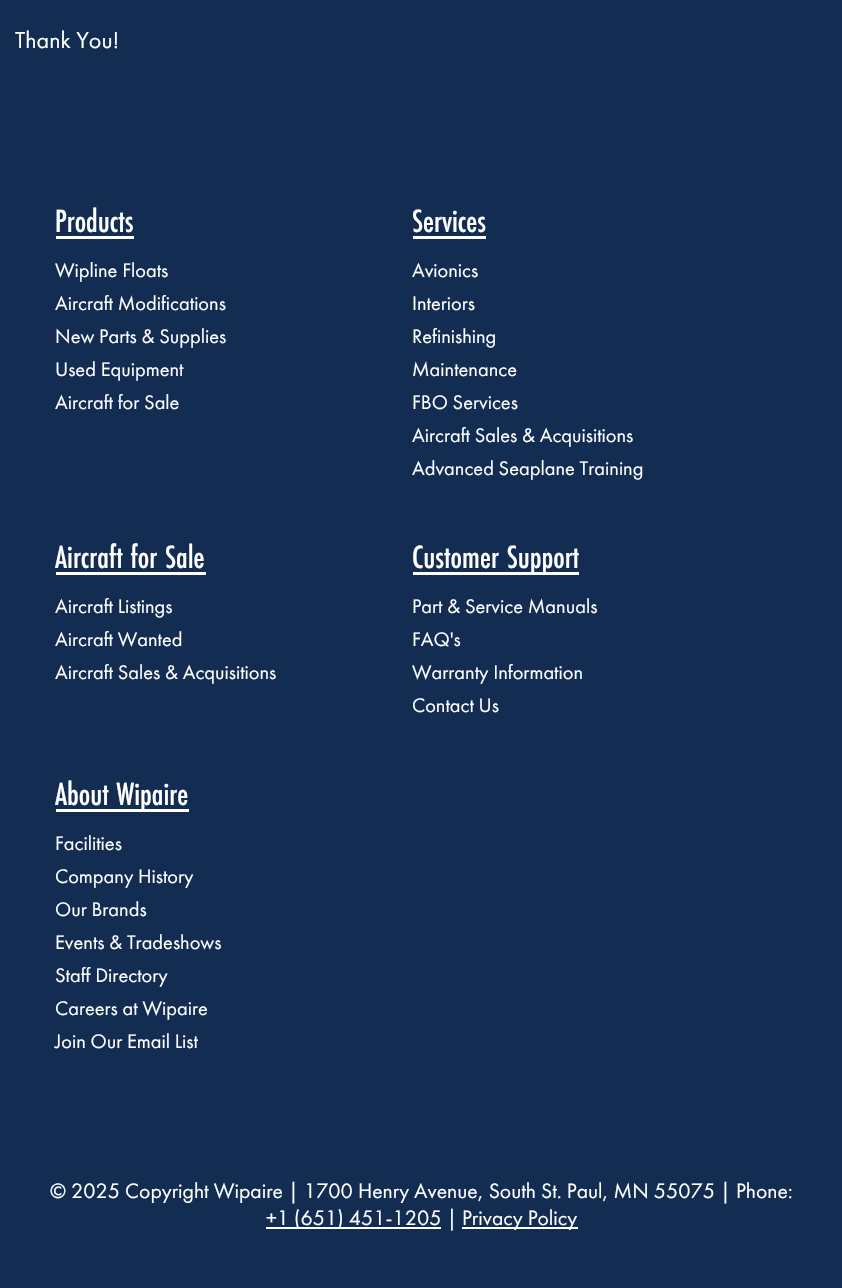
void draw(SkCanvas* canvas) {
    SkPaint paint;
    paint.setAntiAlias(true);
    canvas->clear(0xFF122C52);
    SkFont font1(fontMgr->matchFamilyStyle("Futura PT", SkFontStyle::Normal()), 24);
    font1.setSubpixel(true);
    paint.setColor(0xFFFFFFFF);
    canvas->drawString("Thank You!", 15, 48, font1, paint);
    SkFont font2(fontMgr->matchFamilyStyle("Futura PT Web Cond", SkFontStyle(500, SkFontStyle::kNormal_Width, SkFontStyle::kUpright_Slant)), 33.5f);
    font2.setSubpixel(true);
    canvas->drawString("Products", 55, 232, font2, paint);
    canvas->drawRect(SkRect::MakeXYWH(56, 236, 78, 3), paint);
    SkFont font3(fontMgr->matchFamilyStyle("Futura PT", SkFontStyle::Normal()), 20.4f);
    font3.setSubpixel(true);
    canvas->drawString("Wipline Floats", 55, 277, font3, paint);
    canvas->drawString("Aircraft Modifications", 55, 310, font3, paint);
    canvas->drawString("New Parts & Supplies", 55, 343, font3, paint);
    canvas->drawString("Used Equipment", 55, 376, font3, paint);
    canvas->drawString("Aircraft for Sale", 55, 409, font3, paint);
    canvas->drawString("Services", 412, 232, font2, paint);
    canvas->drawRect(SkRect::MakeXYWH(413, 236, 73, 3), paint);
    canvas->drawString("Avionics", 412, 277, font3, paint);
    canvas->drawString("Interiors", 412, 310, font3, paint);
    canvas->drawString("Refinishing", 412, 343, font3, paint);
    canvas->drawString("Maintenance", 412, 376, font3, paint);
    canvas->drawString("FBO Services", 412, 409, font3, paint);
    canvas->drawString("Aircraft Sales & Acquisitions", 412, 442, font3, paint);
    canvas->drawString("Advanced Seaplane Training", 412, 475, font3, paint);
    canvas->drawString("Aircraft for Sale", 55, 568, font2, paint);
    canvas->drawRect(SkRect::MakeXYWH(56, 572, 150, 3), paint);
    canvas->drawString("Aircraft Listings", 55, 613, font3, paint);
    canvas->drawString("Aircraft Wanted", 55, 646, font3, paint);
    canvas->drawString("Aircraft Sales & Acquisitions", 55, 679, font3, paint);
    canvas->drawRect(SkRect::MakeXYWH(413, 572, 166, 3), paint);
    canvas->drawString("Customer Support", 412, 568, font2, paint);
    canvas->drawString("Part & Service Manuals", 412, 613, font3, paint);
    canvas->drawString("FAQ's", 412, 646, font3, paint);
    canvas->drawString("Warranty Information", 412, 679, font3, paint);
    canvas->drawString("Contact Us", 412, 712, font3, paint);
    canvas->drawRect(SkRect::MakeXYWH(56, 809, 133, 3), paint);
    canvas->drawString("About Wipaire", 55, 805, font2, paint);
    canvas->drawString("Facilities", 55, 850, font3, paint);
    canvas->drawString("Company History", 55, 883, font3, paint);
    canvas->drawString("Our Brands", 55, 916, font3, paint);
    canvas->drawString("Events & Tradeshows", 55, 949, font3, paint);
    canvas->drawString("Staff Directory", 55, 982, font3, paint);
    canvas->drawString("Careers at Wipaire", 55, 1015, font3, paint);
    canvas->drawString("Join Our Email List", 55, 1048, font3, paint);
    SkFont font4(fontMgr->matchFamilyStyle("Futura PT", SkFontStyle::Normal()), 21.6f);
    font4.setSubpixel(true);
    canvas->drawString("© 2025 Copyright Wipaire | 1700 Henry Avenue, South St. Paul, MN 55075 | Phone:", 50, 1198, font4, paint);
    canvas->drawRect(SkRect::MakeXYWH(266, 1227, 175, 2), paint);
    canvas->drawString("+1 (651) 451-1205 |", 266, 1225, font4, paint);
    canvas->drawRect(SkRect::MakeXYWH(462, 1227, 116, 2), paint);
    canvas->drawString("Privacy Policy", 462, 1225, font4, paint);
}
